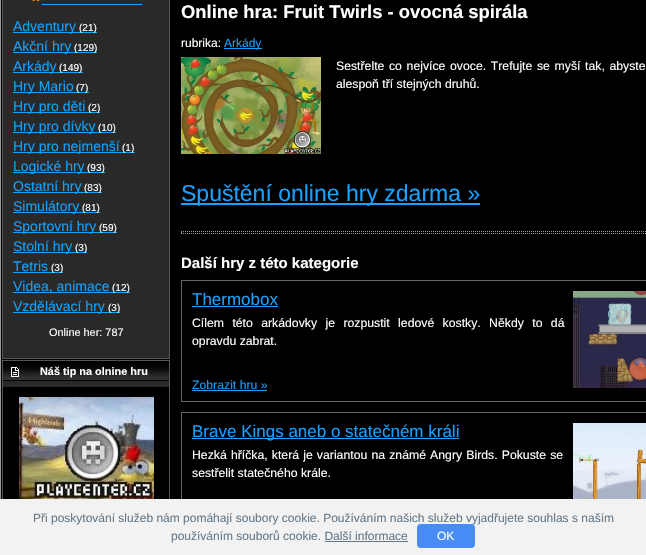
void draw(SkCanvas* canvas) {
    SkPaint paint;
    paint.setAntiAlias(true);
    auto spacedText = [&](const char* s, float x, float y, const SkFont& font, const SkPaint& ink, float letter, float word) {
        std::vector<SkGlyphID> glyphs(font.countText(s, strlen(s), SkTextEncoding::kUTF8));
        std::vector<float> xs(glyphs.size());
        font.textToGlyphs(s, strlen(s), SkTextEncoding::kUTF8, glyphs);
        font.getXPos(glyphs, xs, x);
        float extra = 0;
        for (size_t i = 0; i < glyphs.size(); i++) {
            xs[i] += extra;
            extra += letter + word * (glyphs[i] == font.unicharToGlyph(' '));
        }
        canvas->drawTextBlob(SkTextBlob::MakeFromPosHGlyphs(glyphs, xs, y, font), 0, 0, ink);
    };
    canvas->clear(0xFF000000);
    paint.setStyle(SkPaint::kStroke_Style);
    paint.setStrokeWidth(1);
    paint.setColor(0xFF9B9A9A);
    canvas->drawRect(SkRect::MakeXYWH(0.5f, -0.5f, 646, 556), paint);
    paint.setStyle(SkPaint::kFill_Style);
    paint.setColor(0xFF292929);
    canvas->drawRect(SkRect::MakeXYWH(2.5f, -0.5f, 167, 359), paint);
    paint.setStyle(SkPaint::kStroke_Style);
    paint.setColor(0xFF555555);
    canvas->drawRect(SkRect::MakeXYWH(2.5f, -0.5f, 167, 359), paint);
    canvas->drawImageRect(SkImages::DeferredFromEncodedData(SkData::MakeFromFileName("img1.png")), SkRect::MakeXYWH(32, 0, 8, 2), SkSamplingOptions());
    paint.setStyle(SkPaint::kFill_Style);
    paint.setColor(0xFF19A1FC);
    canvas->drawRect(SkRect::MakeXYWH(42, 4, 100, 1), paint);
    paint.setColor(0xFF12A1FC);
    canvas->drawRect(SkRect::MakeXYWH(13, 32, 84, 1), paint);
    SkFont font1(fontMgr->matchFamilyStyle("Liberation Sans", SkFontStyle::Normal()), 14);
    font1.setSubpixel(true);
    canvas->drawString("Adventury", 13, 31, font1, paint);
    SkFont font2(fontMgr->matchFamilyStyle("Liberation Sans", SkFontStyle::Normal()), 10);
    font2.setSubpixel(true);
    paint.setColor(0xFFFFFFFF);
    canvas->drawString("(21)", 79, 31, font2, paint);
    paint.setColor(0xFF12A1FC);
    canvas->drawRect(SkRect::MakeXYWH(13, 52, 58, 1), paint);
    canvas->drawString("Akční hry", 13, 51, font1, paint);
    canvas->drawRect(SkRect::MakeXYWH(71, 52, 26, 1), paint);
    paint.setColor(0xFFFFFFFF);
    canvas->drawString("(129)", 74, 51, font2, paint);
    paint.setColor(0xFF12A1FC);
    canvas->drawRect(SkRect::MakeXYWH(13, 72, 70, 1), paint);
    canvas->drawString("Arkády", 13, 71, font1, paint);
    paint.setColor(0xFFFFFFFF);
    canvas->drawString("(149)", 59, 71, font2, paint);
    paint.setColor(0xFF12A1FC);
    canvas->drawRect(SkRect::MakeXYWH(13, 92, 76, 1), paint);
    canvas->drawString("Hry Mario", 13, 91, font1, paint);
    paint.setColor(0xFFFFFFFF);
    canvas->drawString("(7)", 76, 91, font2, paint);
    paint.setColor(0xFF12A1FC);
    canvas->drawRect(SkRect::MakeXYWH(13, 112, 87, 1), paint);
    canvas->drawString("Hry pro děti", 13, 111, font1, paint);
    paint.setColor(0xFFFFFFFF);
    canvas->drawString("(2)", 88, 111, font2, paint);
    paint.setColor(0xFF12A1FC);
    canvas->drawRect(SkRect::MakeXYWH(13, 132, 82, 1), paint);
    canvas->drawString("Hry pro dívky", 13, 131, font1, paint);
    canvas->drawRect(SkRect::MakeXYWH(95, 132, 21, 1), paint);
    paint.setColor(0xFFFFFFFF);
    canvas->drawString("(10)", 98, 131, font2, paint);
    paint.setColor(0xFF12A1FC);
    canvas->drawRect(SkRect::MakeXYWH(13, 152, 122, 1), paint);
    canvas->drawString("Hry pro nejmenší", 13, 151, font1, paint);
    paint.setColor(0xFFFFFFFF);
    canvas->drawString("(1)", 122, 151, font2, paint);
    paint.setColor(0xFF12A1FC);
    canvas->drawRect(SkRect::MakeXYWH(13, 172, 92, 1), paint);
    canvas->drawString("Logické hry", 13, 171, font1, paint);
    paint.setColor(0xFFFFFFFF);
    canvas->drawString("(93)", 87, 171, font2, paint);
    paint.setColor(0xFF12A1FC);
    canvas->drawRect(SkRect::MakeXYWH(13, 192, 68, 1), paint);
    canvas->drawString("Ostatní hry", 13, 191, font1, paint);
    canvas->drawRect(SkRect::MakeXYWH(81, 192, 21, 1), paint);
    paint.setColor(0xFFFFFFFF);
    canvas->drawString("(83)", 84, 191, font2, paint);
    paint.setColor(0xFF12A1FC);
    canvas->drawRect(SkRect::MakeXYWH(13, 212, 66, 1), paint);
    canvas->drawString("Simulátory", 13, 211, font1, paint);
    canvas->drawRect(SkRect::MakeXYWH(79, 212, 21, 1), paint);
    paint.setColor(0xFFFFFFFF);
    canvas->drawString("(81)", 82, 211, font2, paint);
    paint.setColor(0xFF12A1FC);
    canvas->drawRect(SkRect::MakeXYWH(13, 232, 83, 1), paint);
    canvas->drawString("Sportovní hry", 13, 231, font1, paint);
    canvas->drawRect(SkRect::MakeXYWH(96, 232, 21, 1), paint);
    paint.setColor(0xFFFFFFFF);
    canvas->drawString("(59)", 99, 231, font2, paint);
    paint.setColor(0xFF12A1FC);
    canvas->drawRect(SkRect::MakeXYWH(13, 252, 59, 1), paint);
    canvas->drawString("Stolní hry", 13, 251, font1, paint);
    canvas->drawRect(SkRect::MakeXYWH(72, 252, 15, 1), paint);
    paint.setColor(0xFFFFFFFF);
    canvas->drawString("(3)", 75, 251, font2, paint);
    paint.setColor(0xFF12A1FC);
    canvas->drawString("Tetris", 13, 271, font1, paint);
    canvas->drawRect(SkRect::MakeXYWH(13, 272, 50, 1), paint);
    paint.setColor(0xFFFFFFFF);
    canvas->drawString("(3)", 51, 271, font2, paint);
    paint.setColor(0xFF12A1FC);
    canvas->drawRect(SkRect::MakeXYWH(13, 292, 117, 1), paint);
    canvas->drawString("Videa, animace", 13, 291, font1, paint);
    paint.setColor(0xFFFFFFFF);
    canvas->drawString("(12)", 112, 291, font2, paint);
    paint.setColor(0xFF12A1FC);
    canvas->drawRect(SkRect::MakeXYWH(13, 312, 107, 1), paint);
    canvas->drawString("Vzdělávací hry", 13, 311, font1, paint);
    paint.setColor(0xFFFFFFFF);
    canvas->drawString("(3)", 108, 311, font2, paint);
    SkFont font3(fontMgr->matchFamilyStyle("Liberation Sans", SkFontStyle::Normal()), 10.9f);
    font3.setSubpixel(true);
    canvas->drawString("Online her: 787", 49, 336, font3, paint);
    paint.setColor(0xFF292929);
    canvas->drawRect(SkRect::MakeXYWH(3, 381, 166, 6), paint);
    paint.setStyle(SkPaint::kStroke_Style);
    paint.setColor(0xFF555555);
    canvas->drawRect(SkRect::MakeXYWH(2.5f, 360.5f, 167, 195), paint);
    canvas->drawImageRect(SkImages::DeferredFromEncodedData(SkData::MakeFromFileName("img2.png")), SkRect::MakeXYWH(3, 361, 166, 20), SkSamplingOptions());
    canvas->drawImageRect(SkImages::DeferredFromEncodedData(SkData::MakeFromFileName("img3.png")), SkRect::MakeXYWH(11, 367, 8, 10), SkSamplingOptions());
    SkFont font4(fontMgr->matchFamilyStyle("Liberation Sans", SkFontStyle::Bold()), 10.9f);
    font4.setSubpixel(true);
    paint.setStyle(SkPaint::kFill_Style);
    paint.setColor(0xFFFFFFFF);
    canvas->drawString("Náš tip na olnine hru", 40, 375, font4, paint);
    canvas->drawImageRect(SkImages::DeferredFromEncodedData(SkData::MakeFromFileName("img4.png")), SkRect::MakeXYWH(19, 397, 135, 102), SkSamplingOptions());
    SkFont font5(fontMgr->matchFamilyStyle("Liberation Sans", SkFontStyle::Bold()), 18.4f);
    font5.setSubpixel(true);
    canvas->drawString("Online hra: Fruit Twirls - ovocná spirála", 181, 18, font5, paint);
    SkFont font6(fontMgr->matchFamilyStyle("Liberation Sans", SkFontStyle::Normal()), 12);
    font6.setSubpixel(true);
    canvas->drawString("rubrika:", 181, 47, font6, paint);
    paint.setColor(0xFF19A1FC);
    canvas->drawRect(SkRect::MakeXYWH(224, 48, 38, 1), paint);
    canvas->drawString("Arkády", 224, 47, font6, paint);
    canvas->drawImageRect(SkImages::DeferredFromEncodedData(SkData::MakeFromFileName("img5.png")), SkRect::MakeXYWH(181, 57, 140, 97), SkSamplingOptions());
    SkFont font7(fontMgr->matchFamilyStyle("Liberation Sans", SkFontStyle::Normal()), 12.25f);
    font7.setSubpixel(true);
    paint.setColor(0xFFFFFFFF);
    spacedText("Sestřelte co nejvíce ovoce. Trefujte se myší tak, abyste", 336, 70, font7, paint, 0, 1.25f);
    canvas->drawString("alespoň tří stejných druhů.", 336, 88, font7, paint);
    paint.setColor(0xFF19A1FC);
    canvas->drawRect(SkRect::MakeXYWH(181, 203, 299, 2), paint);
    SkFont font8(fontMgr->matchFamilyStyle("Liberation Sans", SkFontStyle::Normal()), 23);
    font8.setSubpixel(true);
    canvas->drawString("Spuštění online hry zdarma »", 181, 201, font8, paint);
    paint.setStyle(SkPaint::kStroke_Style);
    paint.setColor(0xFF999999);
    paint.setPathEffect(SkDashPathEffect::Make({{1, 1}}, 0));
    canvas->drawPath(SkPathBuilder().moveTo(181, 231.5f).lineTo(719, 231.5f).detach(), paint);
    paint.setPathEffect(nullptr);
    paint.setPathEffect(SkDashPathEffect::Make({{1, 1}}, 0));
    canvas->drawPath(SkPathBuilder().moveTo(181, 233.5f).lineTo(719, 233.5f).detach(), paint);
    paint.setPathEffect(nullptr);
    paint.setStyle(SkPaint::kFill_Style);
    canvas->drawRect(SkRect::MakeXYWH(181, 231, 1, 3), paint);
    SkFont font9(fontMgr->matchFamilyStyle("Liberation Sans", SkFontStyle::Bold()), 15);
    font9.setSubpixel(true);
    paint.setColor(0xFFFFFFFF);
    canvas->drawString("Další hry z této kategorie", 181, 268, font9, paint);
    paint.setStyle(SkPaint::kStroke_Style);
    paint.setColor(0xFF666666);
    canvas->drawRect(SkRect::MakeXYWH(181.5f, 280.5f, 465, 121), paint);
    SkFont font10(fontMgr->matchFamilyStyle("Liberation Sans", SkFontStyle::Normal()), 17);
    font10.setSubpixel(true);
    paint.setStyle(SkPaint::kFill_Style);
    paint.setColor(0xFF19A1FC);
    canvas->drawString("Thermobox", 192, 305, font10, paint);
    canvas->drawRect(SkRect::MakeXYWH(192, 306, 86, 1), paint);
    paint.setColor(0xFFFFFFFF);
    spacedText("Cílem této arkádovky je rozpustit ledové kostky. Někdy to dá", 192, 327, font7, paint, 0, 5);
    canvas->drawString("opravdu zabrat.", 192, 345, font7, paint);
    canvas->drawImageRect(SkImages::DeferredFromEncodedData(SkData::MakeFromFileName("img6.png")), SkRect::MakeXYWH(573, 291, 73, 97), SkSamplingOptions());
    paint.setColor(0xFF19A1FC);
    canvas->drawString("Zobrazit hru »", 192, 389, font7, paint);
    canvas->drawRect(SkRect::MakeXYWH(192, 390, 75, 1), paint);
    paint.setStyle(SkPaint::kStroke_Style);
    paint.setColor(0xFF666666);
    canvas->drawRect(SkRect::MakeXYWH(181.5f, 412.5f, 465, 121), paint);
    paint.setStyle(SkPaint::kFill_Style);
    paint.setColor(0xFF19A1FC);
    canvas->drawRect(SkRect::MakeXYWH(192, 438, 267, 1), paint);
    canvas->drawString("Brave Kings aneb o statečném králi", 192, 437, font10, paint);
    paint.setColor(0xFFFFFFFF);
    spacedText("Hezká hříčka, která je variantou na známé Angry Birds. Pokuste se", 192, 459, font7, paint, 0, 0.75f);
    canvas->drawString("sestřelit statečného krále.", 192, 477, font7, paint);
    canvas->drawImageRect(SkImages::DeferredFromEncodedData(SkData::MakeFromFileName("img7.png")), SkRect::MakeXYWH(573, 423, 73, 76), SkSamplingOptions());
    paint.setColor(0xFFF2F2F2);
    canvas->drawRect(SkRect::MakeXYWH(0, 499, 646, 56), paint);
    paint.setColor(0xFF657888);
    canvas->drawString("Při poskytování služeb nám pomáhají soubory cookie. Používáním našich služeb vyjadřujete souhlas s naším", 33, 522, font6, paint);
    canvas->drawString("používáním souborů cookie. Další informace", 171, 540, font6, paint);
    paint.setColor(0xFF4A8CF6);
    canvas->drawRoundRect(SkRect::MakeXYWH(417, 524, 58, 24), 4, 4, paint);
    paint.setColor(0xFFFFFFFF);
    canvas->drawString("OK", 437, 540, font6, paint);
    paint.setColor(0xFF657888);
    canvas->drawRect(SkRect::MakeXYWH(325, 541, 83, 1), paint);
}
